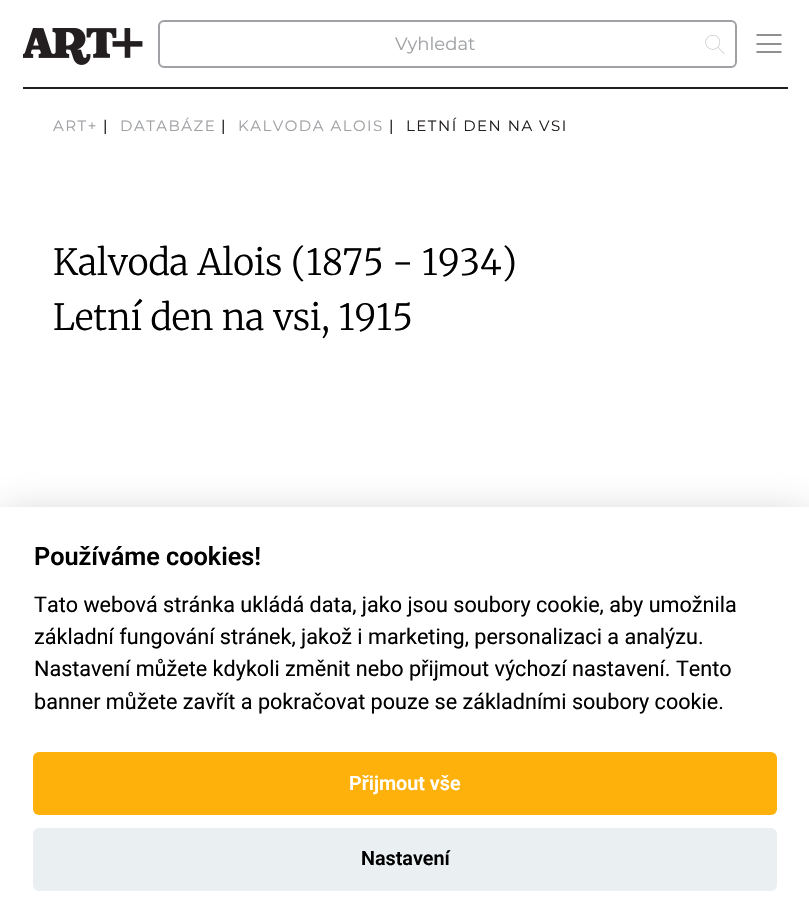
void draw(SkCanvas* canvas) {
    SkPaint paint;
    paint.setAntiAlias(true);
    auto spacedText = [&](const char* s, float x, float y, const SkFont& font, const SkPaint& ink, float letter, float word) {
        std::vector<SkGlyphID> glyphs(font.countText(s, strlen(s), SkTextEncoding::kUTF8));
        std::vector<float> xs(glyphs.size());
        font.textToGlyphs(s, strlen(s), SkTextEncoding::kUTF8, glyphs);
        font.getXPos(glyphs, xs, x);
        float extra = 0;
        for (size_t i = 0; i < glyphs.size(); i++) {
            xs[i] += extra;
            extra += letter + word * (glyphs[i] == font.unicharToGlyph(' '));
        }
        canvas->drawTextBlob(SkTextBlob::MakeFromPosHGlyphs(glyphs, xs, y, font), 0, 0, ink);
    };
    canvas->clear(0xFFFFFFFF);
    paint.setColor(0xFF231F20);
    canvas->drawRect(SkRect::MakeXYWH(23, 87, 765, 2), paint);
    canvas->drawImageRect(SkImages::DeferredFromEncodedData(SkData::MakeFromFileName("img1.png")), SkRect::MakeXYWH(23, 28, 120, 37), SkSamplingOptions());
    paint.setStyle(SkPaint::kStroke_Style);
    paint.setStrokeWidth(2);
    paint.setColor(0xFF9FA1A4);
    canvas->drawRoundRect(SkRect::MakeXYWH(159, 21, 577, 46), 5, 5, paint);
    SkFont font1(fontMgr->matchFamilyStyle("Montserrat", SkFontStyle::Normal()), 18);
    font1.setSubpixel(true);
    paint.setStyle(SkPaint::kFill_Style);
    canvas->drawString("Vyhledat", 395, 50, font1, paint);
    canvas->drawImageRect(SkImages::DeferredFromEncodedData(SkData::MakeFromFileName("img2.png")), SkRect::MakeXYWH(705, 35, 20, 19), SkSamplingOptions());
    paint.setStyle(SkPaint::kStroke_Style);
    paint.setStrokeWidth(1);
    paint.setColor(0xFF231F20);
    canvas->drawPath(SkPathBuilder().moveTo(781.5f, 35).lineTo(756.5f, 35).moveTo(781.5f, 52).lineTo(756.5f, 52).moveTo(781.5f, 44).lineTo(756.5f, 44).detach(), paint);
    SkFont font2(fontMgr->matchFamilyStyle("Montserrat", SkFontStyle::Normal()), 15);
    font2.setSubpixel(true);
    paint.setStyle(SkPaint::kFill_Style);
    paint.setColor(0xFF9FA1A4);
    spacedText("ART+", 53, 131, font2, paint, 1.5f, 0);
    paint.setColor(0xFF000000);
    spacedText("|", 103, 131, font2, paint, 1.5f, 0);
    paint.setColor(0xFF9FA1A4);
    spacedText("DATABÁZE", 120, 131, font2, paint, 1.5f, 0);
    paint.setColor(0xFF000000);
    spacedText("|", 221, 131, font2, paint, 1.5f, 0);
    paint.setColor(0xFF9FA1A4);
    spacedText("KALVODA ALOIS", 238, 131, font2, paint, 1.5f, 0);
    paint.setColor(0xFF000000);
    spacedText("|", 389, 131, font2, paint, 1.5f, 0);
    paint.setColor(0xFF231F20);
    spacedText("LETNÍ DEN NA VSI", 406, 131, font2, paint, 1.5f, 0);
    SkFont font3(fontMgr->matchFamilyStyle("Merriweather", SkFontStyle(300, SkFontStyle::kNormal_Width, SkFontStyle::kUpright_Slant)), 36);
    font3.setSubpixel(true);
    paint.setColor(0xFF000000);
    canvas->drawString("Kalvoda Alois (1875 - 1934)", 53, 275, font3, paint);
    canvas->drawString("Letní den na vsi, 1915", 53, 330, font3, paint);
    paint.setColor(0x47020203);
    paint.setMaskFilter(SkMaskFilter::MakeBlur(kNormal_SkBlurStyle, 22.5f));
    canvas->drawRect(SkRect::MakeXYWH(0, 522, 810, 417), paint);
    paint.setMaskFilter(nullptr);
    paint.setColor(0xFFFFFFFF);
    canvas->drawRect(SkRect::MakeXYWH(0, 507, 809, 417), paint);
    SkFont font4(fontMgr->matchFamilyStyle("Roboto", SkFontStyle(600, SkFontStyle::kNormal_Width, SkFontStyle::kUpright_Slant)), 25.25f);
    font4.setSubpixel(true);
    paint.setColor(0xFF000000);
    canvas->drawString("Používáme cookies!", 34, 565, font4, paint);
    SkFont font5(fontMgr->matchFamilyStyle("Roboto", SkFontStyle::Normal()), 21.6f);
    font5.setSubpixel(true);
    canvas->drawString("Tato webová stránka ukládá data, jako jsou soubory cookie, aby umožnila", 34, 612, font5, paint);
    canvas->drawString("základní fungování stránek, jakož i marketing, personalizaci a analýzu.", 34, 644, font5, paint);
    canvas->drawString("Nastavení můžete kdykoli změnit nebo přijmout výchozí nastavení. Tento", 34, 676, font5, paint);
    canvas->drawString("banner můžete zavřít a pokračovat pouze se základními soubory cookie.", 34, 709, font5, paint);
    paint.setColor(0xFFFEB00B);
    canvas->drawRoundRect(SkRect::MakeXYWH(33, 752, 744, 63), 6, 6, paint);
    SkFont font6(fontMgr->matchFamilyStyle("Roboto", SkFontStyle(600, SkFontStyle::kNormal_Width, SkFontStyle::kUpright_Slant)), 19.75f);
    font6.setSubpixel(true);
    paint.setColor(0xFFFFFFFF);
    canvas->drawString("Přijmout vše", 349, 790, font6, paint);
    paint.setColor(0xFFEAEFF2);
    canvas->drawRoundRect(SkRect::MakeXYWH(33, 828, 744, 63), 6, 6, paint);
    paint.setColor(0xFF000000);
    canvas->drawString("Nastavení", 361, 865, font6, paint);
}
